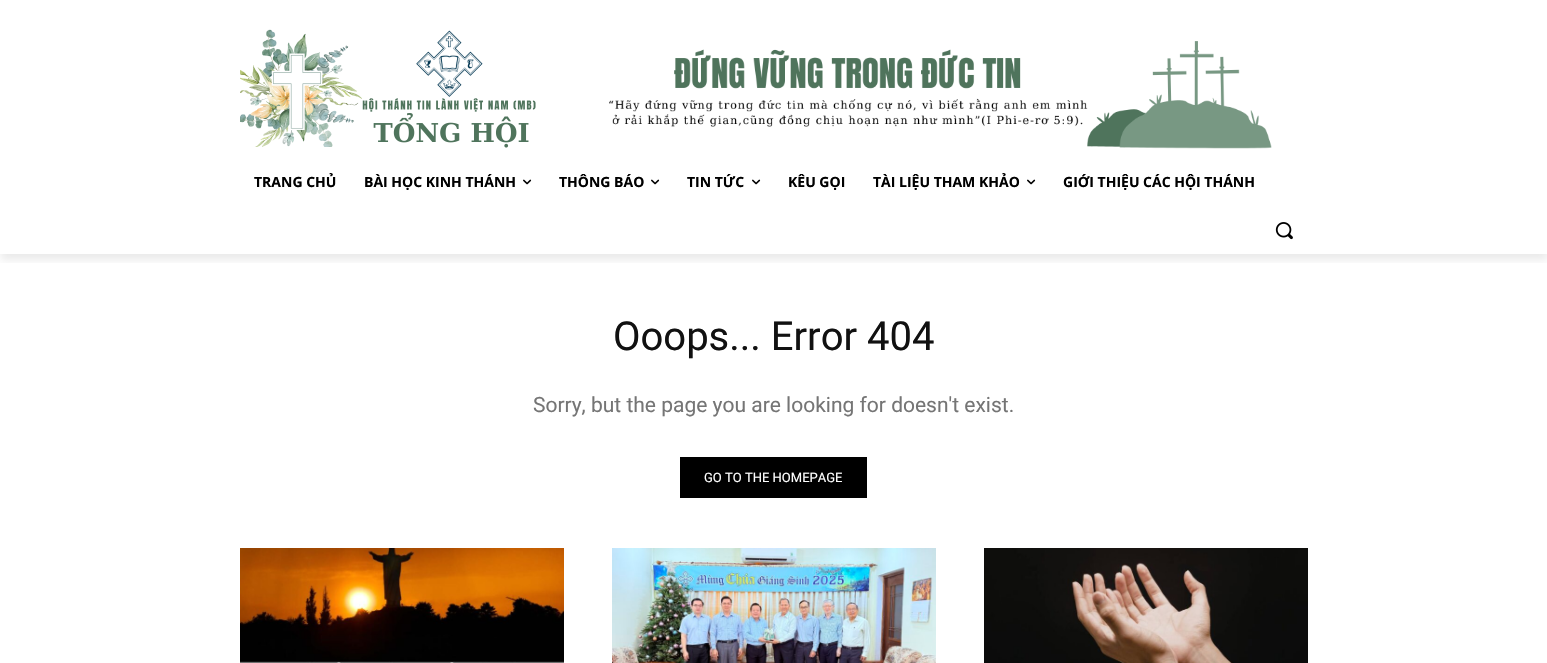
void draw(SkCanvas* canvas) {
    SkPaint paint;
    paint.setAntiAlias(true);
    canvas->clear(0xFFFFFFFF);
    canvas->drawImageRect(SkImages::DeferredFromEncodedData(SkData::MakeFromFileName("img1.png")), SkRect::MakeXYWH(240, 29, 296, 119), SkSamplingOptions());
    canvas->drawImageRect(SkImages::DeferredFromEncodedData(SkData::MakeFromFileName("img2.png")), SkRect::MakeXYWH(609, 41, 663, 108), SkSamplingOptions());
    canvas->save();
    canvas->clipRect(SkRect::MakeXYWH(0, 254, 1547, 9));
    paint.setColor(0x14000000);
    paint.setMaskFilter(SkMaskFilter::MakeBlur(kNormal_SkBlurStyle, 4));
    canvas->drawRect(SkRect::MakeXYWH(1, 6, 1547, 254), paint);
    paint.setMaskFilter(nullptr);
    canvas->restore();
    SkFont font1(fontMgr->matchFamilyStyle("Open Sans", SkFontStyle::Bold()), 14);
    font1.setSubpixel(true);
    paint.setColor(0xFF000000);
    canvas->drawString("TRANG CHỦ", 254, 187, font1, paint);
    canvas->drawString("BÀI HỌC KINH THÁNH", 364, 187, font1, paint);
    canvas->drawImageRect(SkImages::DeferredFromEncodedData(SkData::MakeFromFileName("img3.png")), SkRect::MakeXYWH(523, 179, 9, 6), SkSamplingOptions());
    canvas->drawString("THÔNG BÁO", 559, 187, font1, paint);
    canvas->drawImageRect(SkImages::DeferredFromEncodedData(SkData::MakeFromFileName("img3.png")), SkRect::MakeXYWH(651, 179, 9, 6), SkSamplingOptions());
    canvas->drawString("TIN TỨC", 687, 187, font1, paint);
    canvas->drawImageRect(SkImages::DeferredFromEncodedData(SkData::MakeFromFileName("img3.png")), SkRect::MakeXYWH(752, 179, 9, 6), SkSamplingOptions());
    canvas->drawString("KÊU GỌI", 788, 187, font1, paint);
    canvas->drawString("TÀI LIỆU THAM KHẢO", 873, 187, font1, paint);
    canvas->drawImageRect(SkImages::DeferredFromEncodedData(SkData::MakeFromFileName("img3.png")), SkRect::MakeXYWH(1027, 179, 9, 6), SkSamplingOptions());
    canvas->drawString("GIỚI THIỆU CÁC HỘI THÁNH", 1063, 187, font1, paint);
    canvas->drawImageRect(SkImages::DeferredFromEncodedData(SkData::MakeFromFileName("img4.png")), SkRect::MakeXYWH(1275, 222, 18, 18), SkSamplingOptions());
    SkFont font2(fontMgr->matchFamilyStyle("Roboto", SkFontStyle::Normal()), 40);
    font2.setSubpixel(true);
    paint.setColor(0xFF111111);
    canvas->drawString("Ooops... Error 404", 613, 350, font2, paint);
    SkFont font3(fontMgr->matchFamilyStyle("Roboto", SkFontStyle::Normal()), 21);
    font3.setSubpixel(true);
    paint.setColor(0xFF757575);
    canvas->drawString("Sorry, but the page you are looking for doesn't exist.", 533, 412, font3, paint);
    paint.setColor(0xFF000000);
    canvas->drawRect(SkRect::MakeXYWH(680, 457, 187, 41), paint);
    SkFont font4(fontMgr->matchFamilyStyle("Roboto", SkFontStyle::Normal()), 13);
    font4.setSubpixel(true);
    paint.setColor(0xFFFFFFFF);
    canvas->drawString("GO TO THE HOMEPAGE", 704, 482, font4, paint);
    canvas->drawImageRect(SkImages::DeferredFromEncodedData(SkData::MakeFromFileName("img5.png")), SkRect::MakeXYWH(240, 548, 324, 115), SkSamplingOptions());
    canvas->drawImageRect(SkImages::DeferredFromEncodedData(SkData::MakeFromFileName("img6.png")), SkRect::MakeXYWH(612, 548, 324, 115), SkSamplingOptions());
    canvas->drawImageRect(SkImages::DeferredFromEncodedData(SkData::MakeFromFileName("img7.png")), SkRect::MakeXYWH(984, 548, 324, 115), SkSamplingOptions());
}
